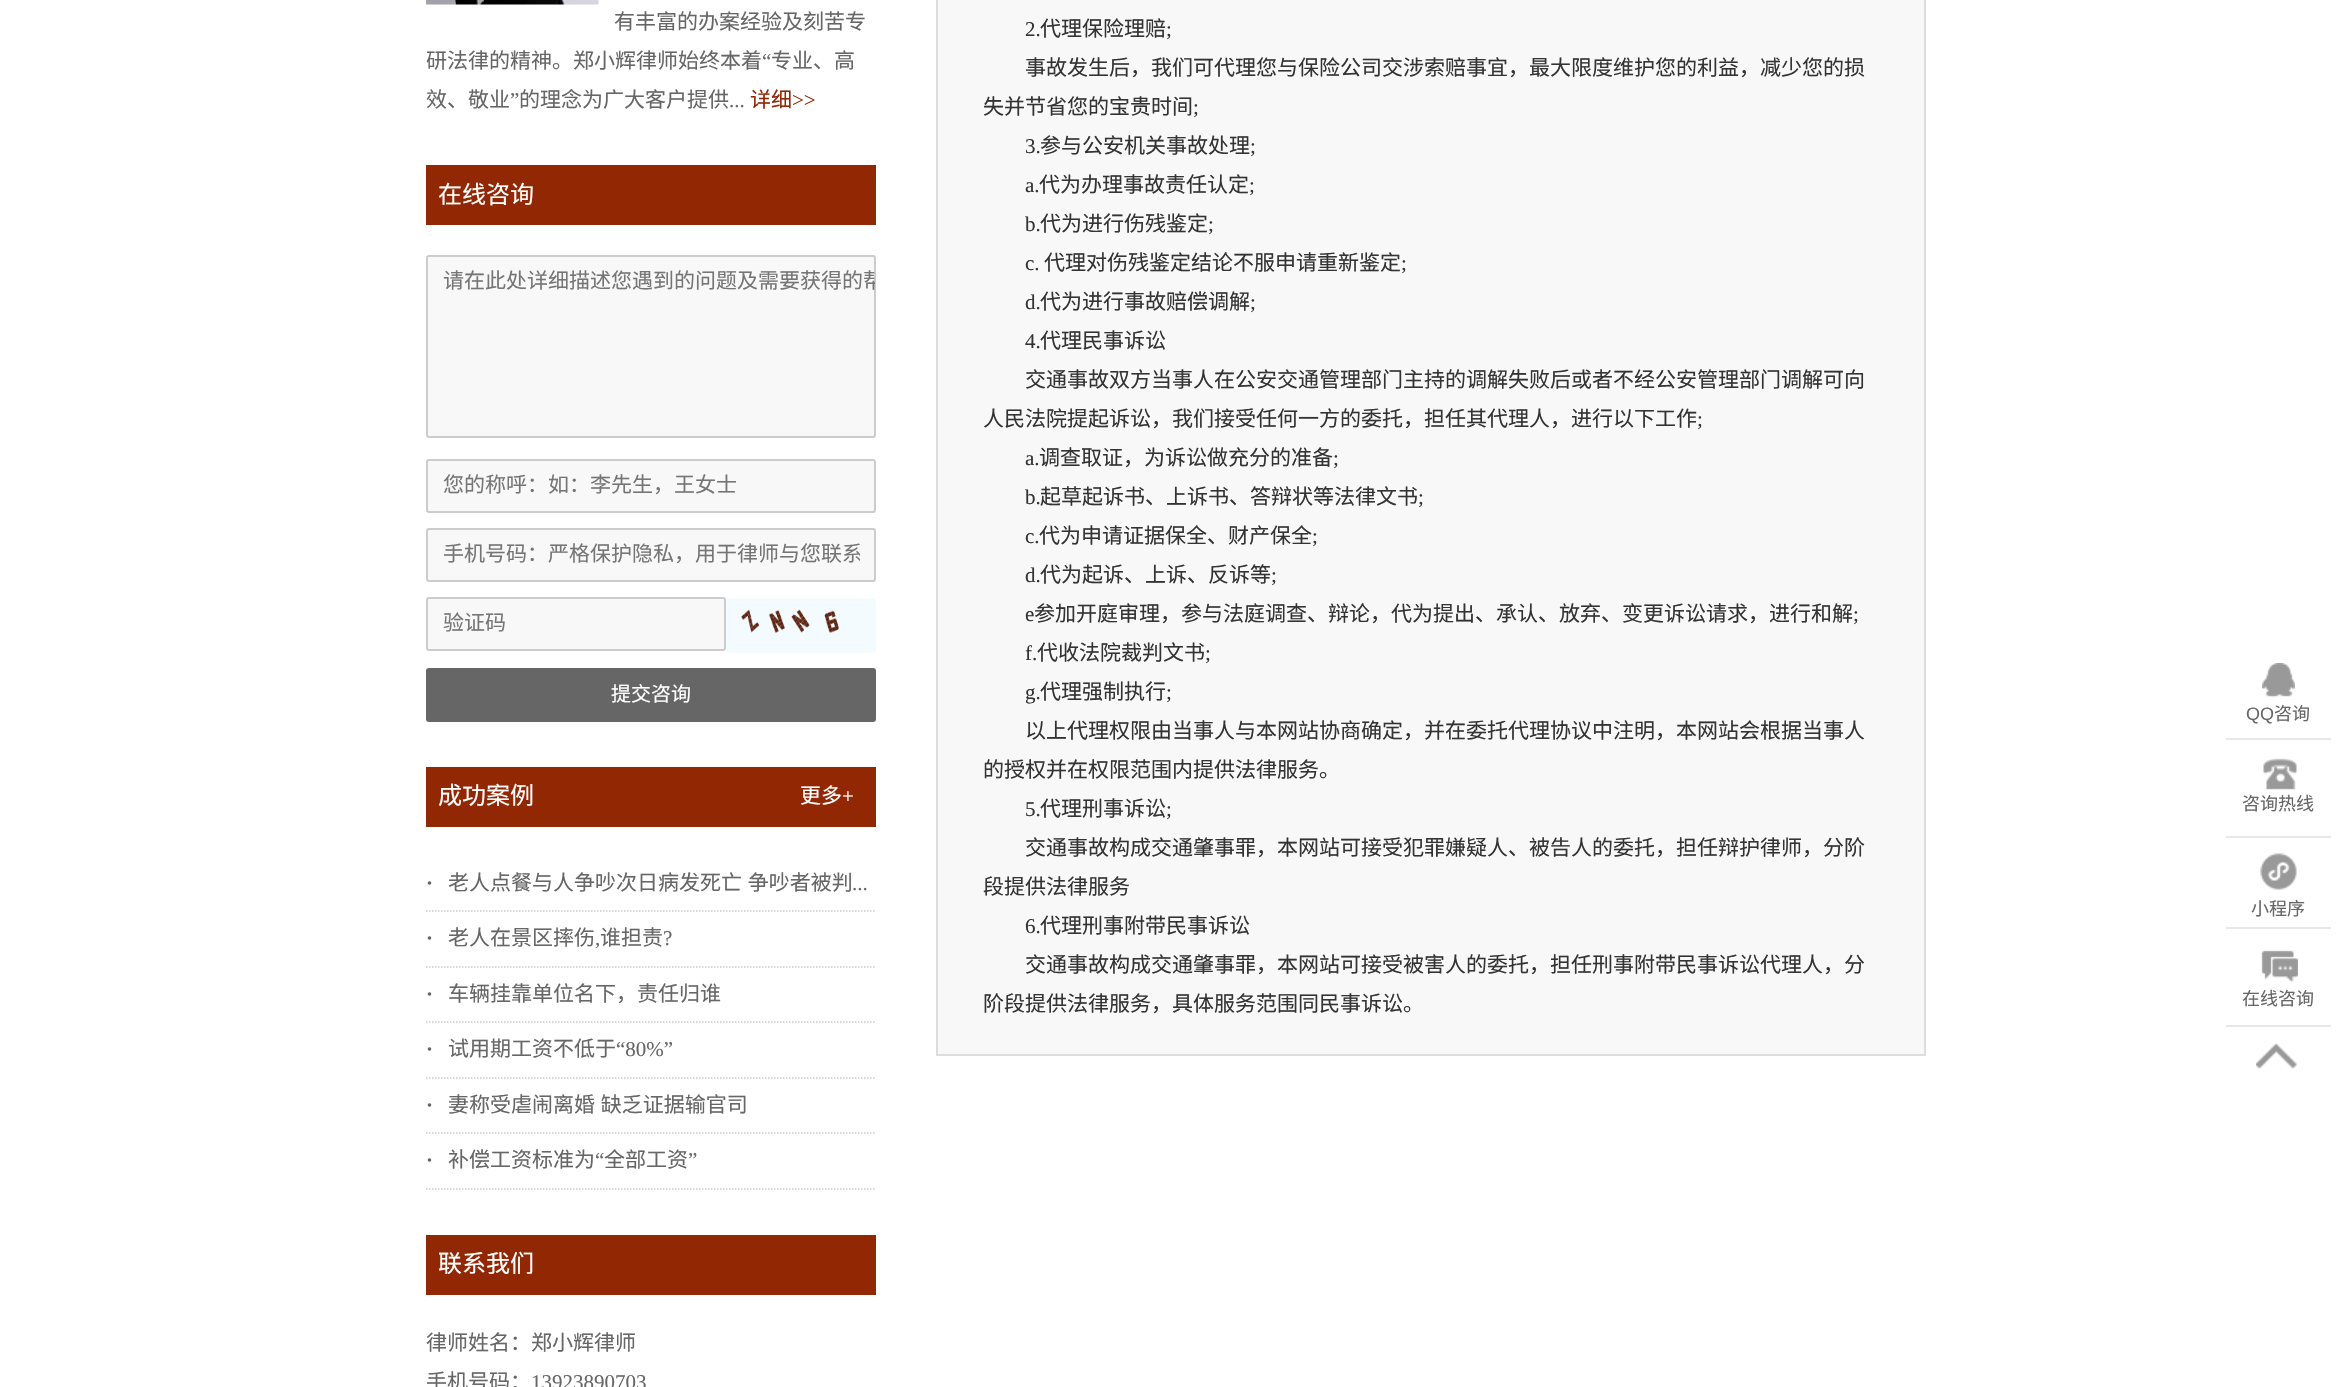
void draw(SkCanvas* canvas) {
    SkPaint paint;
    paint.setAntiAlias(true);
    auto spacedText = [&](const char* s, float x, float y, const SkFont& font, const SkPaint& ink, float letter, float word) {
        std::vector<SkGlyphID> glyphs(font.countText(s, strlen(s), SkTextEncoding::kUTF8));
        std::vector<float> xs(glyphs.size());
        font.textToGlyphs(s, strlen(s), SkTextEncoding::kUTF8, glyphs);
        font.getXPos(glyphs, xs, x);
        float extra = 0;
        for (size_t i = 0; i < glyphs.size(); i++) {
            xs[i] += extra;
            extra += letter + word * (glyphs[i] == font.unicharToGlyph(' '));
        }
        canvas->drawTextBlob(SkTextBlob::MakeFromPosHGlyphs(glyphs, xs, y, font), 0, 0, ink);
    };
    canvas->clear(0xFFFFFFFF);
    canvas->drawImageRect(SkImages::DeferredFromEncodedData(SkData::MakeFromFileName("img1.png")), SkRect::MakeXYWH(426, 0, 173, 5), SkSamplingOptions());
    SkFont font1(fontMgr->matchFamilyStyle("Noto Sans CJK SC", SkFontStyle::Normal()), 21);
    font1.setSubpixel(true);
    paint.setColor(0xFF666666);
    canvas->drawString("有丰富的办案经验及刻苦专", 614, 29, font1, paint);
    canvas->drawString("研法律的精神。郑小辉律师始终本着", 426, 68, font1, paint);
    SkFont font2(fontMgr->matchFamilyStyle("Liberation Serif", SkFontStyle::Normal()), 21);
    font2.setSubpixel(true);
    canvas->drawString("“", 762, 68, font2, paint);
    canvas->drawString("专业、高", 771, 68, font1, paint);
    canvas->drawString("效、敬业", 426, 107, font1, paint);
    canvas->drawString("”", 510, 107, font2, paint);
    canvas->drawString("的理念为广大客户提供", 519, 107, font1, paint);
    canvas->drawString("...", 729, 107, font2, paint);
    paint.setColor(0xFF912703);
    canvas->drawString("详细", 750, 107, font1, paint);
    canvas->drawString(">>", 792, 107, font2, paint);
    canvas->drawRect(SkRect::MakeXYWH(426, 165, 450, 60), paint);
    SkFont font3(fontMgr->matchFamilyStyle("Noto Sans CJK SC", SkFontStyle::Normal()), 24);
    font3.setSubpixel(true);
    paint.setColor(0xFFFFFFFF);
    canvas->drawString("在线咨询", 438, 203, font3, paint);
    paint.setColor(0xFFF8F8F8);
    canvas->drawRoundRect(SkRect::MakeXYWH(427, 256, 448, 181), 2, 2, paint);
    paint.setStyle(SkPaint::kStroke_Style);
    paint.setStrokeWidth(2);
    paint.setColor(0xFFCCCCCC);
    canvas->drawRoundRect(SkRect::MakeXYWH(427, 256, 448, 181), 2, 2, paint);
    canvas->save();
    canvas->clipPath(SkPathBuilder().moveTo(429.5f, 257).lineTo(873.5f, 257).cubicTo(874.5f, 257, 875, 257.5f, 875, 258.5f).lineTo(875, 435.5f).cubicTo(875, 436.5f, 874.5f, 437, 873.5f, 437).lineTo(429.5f, 437).cubicTo(428.5f, 437, 428, 436.5f, 428, 435.5f).lineTo(428, 258.5f).cubicTo(428, 257.5f, 428.5f, 257, 429.5f, 257).close().detach(), true);
    paint.setStyle(SkPaint::kFill_Style);
    paint.setColor(0xFF757575);
    canvas->drawString("请在此处详细描述您遇到的问题及需要获得的帮", 443, 288, font1, paint);
    canvas->restore();
    paint.setColor(0xFFF8F8F8);
    canvas->drawRoundRect(SkRect::MakeXYWH(427, 460, 448, 52), 2, 2, paint);
    paint.setStyle(SkPaint::kStroke_Style);
    paint.setColor(0xFFCCCCCC);
    canvas->drawRoundRect(SkRect::MakeXYWH(427, 460, 448, 52), 2, 2, paint);
    paint.setStyle(SkPaint::kFill_Style);
    paint.setColor(0xFF757575);
    canvas->drawString("您的称呼：如：李先生，王女士", 443, 492, font1, paint);
    paint.setColor(0xFFF8F8F8);
    canvas->drawRoundRect(SkRect::MakeXYWH(427, 529, 448, 52), 2, 2, paint);
    paint.setStyle(SkPaint::kStroke_Style);
    paint.setColor(0xFFCCCCCC);
    canvas->drawRoundRect(SkRect::MakeXYWH(427, 529, 448, 52), 2, 2, paint);
    canvas->save();
    canvas->clipRect(SkRect::MakeXYWH(443, 537, 417, 30));
    paint.setStyle(SkPaint::kFill_Style);
    paint.setColor(0xFF757575);
    canvas->drawString("手机号码：严格保护隐私，用于律师与您联系", 443, 561, font1, paint);
    canvas->restore();
    paint.setColor(0xFFF8F8F8);
    canvas->drawRoundRect(SkRect::MakeXYWH(427, 598, 298, 52), 2, 2, paint);
    paint.setStyle(SkPaint::kStroke_Style);
    paint.setColor(0xFFCCCCCC);
    canvas->drawRoundRect(SkRect::MakeXYWH(427, 598, 298, 52), 2, 2, paint);
    paint.setStyle(SkPaint::kFill_Style);
    paint.setColor(0xFF757575);
    canvas->drawString("验证码", 443, 630, font1, paint);
    canvas->drawImageRect(SkImages::DeferredFromEncodedData(SkData::MakeFromFileName("img2.png")), SkRect::MakeXYWH(726, 598, 150, 55), SkSamplingOptions());
    paint.setColor(0xFF666666);
    canvas->drawRoundRect(SkRect::MakeXYWH(426, 668, 450, 54), 3, 3, paint);
    SkFont font4(fontMgr->matchFamilyStyle("Noto Sans CJK SC", SkFontStyle::Normal()), 20);
    font4.setSubpixel(true);
    paint.setColor(0xFFFFFFFF);
    canvas->drawString("提交咨询", 611, 701, font4, paint);
    paint.setColor(0xFF912703);
    canvas->drawRect(SkRect::MakeXYWH(426, 767, 450, 60), paint);
    paint.setColor(0xFFFFFFFF);
    canvas->drawString("成功案例", 438, 804, font3, paint);
    canvas->drawString("更多", 800, 803, font1, paint);
    canvas->drawString("+", 842, 803, font2, paint);
    paint.setStyle(SkPaint::kStroke_Style);
    paint.setStrokeWidth(1.5f);
    paint.setColor(0xFFCCCCCC);
    paint.setPathEffect(SkDashPathEffect::Make({{1.5f, 1.5f}}, 0));
    canvas->drawPath(SkPathBuilder().moveTo(426, 911).lineTo(876, 911).detach(), paint);
    paint.setPathEffect(nullptr);
    SkFont font5(fontMgr->matchFamilyStyle("Liberation Serif", SkFontStyle::Bold()), 21);
    font5.setSubpixel(true);
    paint.setStyle(SkPaint::kFill_Style);
    paint.setColor(0xFF666666);
    canvas->drawString("·", 426, 890, font5, paint);
    spacedText("老人点餐与人争吵次日病发死亡 争吵者被判", 448, 890, font1, paint, 0, 1);
    canvas->drawString("...", 852, 890, font2, paint);
    paint.setStyle(SkPaint::kStroke_Style);
    paint.setColor(0xFFCCCCCC);
    paint.setPathEffect(SkDashPathEffect::Make({{1.5f, 1.5f}}, 0));
    canvas->drawPath(SkPathBuilder().moveTo(426, 967).lineTo(876, 967).detach(), paint);
    paint.setPathEffect(nullptr);
    paint.setStyle(SkPaint::kFill_Style);
    paint.setColor(0xFF666666);
    canvas->drawString("·", 426, 945, font5, paint);
    canvas->drawString("老人在景区摔伤", 448, 945, font1, paint);
    canvas->drawString("谁担责", 600, 945, font1, paint);
    canvas->drawString("?", 663, 945, font2, paint);
    canvas->drawString(",", 595, 945, font2, paint);
    paint.setStyle(SkPaint::kStroke_Style);
    paint.setColor(0xFFCCCCCC);
    paint.setPathEffect(SkDashPathEffect::Make({{1.5f, 1.5f}}, 0));
    canvas->drawPath(SkPathBuilder().moveTo(426, 1022).lineTo(876, 1022).detach(), paint);
    paint.setPathEffect(nullptr);
    paint.setStyle(SkPaint::kFill_Style);
    paint.setColor(0xFF666666);
    canvas->drawString("·", 426, 1001, font5, paint);
    canvas->drawString("车辆挂靠单位名下，责任归谁", 448, 1001, font1, paint);
    paint.setStyle(SkPaint::kStroke_Style);
    paint.setColor(0xFFCCCCCC);
    paint.setPathEffect(SkDashPathEffect::Make({{1.5f, 1.5f}}, 0));
    canvas->drawPath(SkPathBuilder().moveTo(426, 1078).lineTo(876, 1078).detach(), paint);
    paint.setPathEffect(nullptr);
    paint.setStyle(SkPaint::kFill_Style);
    paint.setColor(0xFF666666);
    canvas->drawString("·", 426, 1056, font5, paint);
    canvas->drawString("试用期工资不低于", 448, 1056, font1, paint);
    canvas->drawString("“80%”", 616, 1056, font2, paint);
    paint.setStyle(SkPaint::kStroke_Style);
    paint.setColor(0xFFCCCCCC);
    paint.setPathEffect(SkDashPathEffect::Make({{1.5f, 1.5f}}, 0));
    canvas->drawPath(SkPathBuilder().moveTo(426, 1133).lineTo(876, 1133).detach(), paint);
    paint.setPathEffect(nullptr);
    paint.setStyle(SkPaint::kFill_Style);
    paint.setColor(0xFF666666);
    canvas->drawString("·", 426, 1112, font5, paint);
    spacedText("妻称受虐闹离婚 缺乏证据输官司", 448, 1112, font1, paint, 0, 1);
    paint.setStyle(SkPaint::kStroke_Style);
    paint.setColor(0xFFCCCCCC);
    paint.setPathEffect(SkDashPathEffect::Make({{1.5f, 1.5f}}, 0));
    canvas->drawPath(SkPathBuilder().moveTo(426, 1189).lineTo(876, 1189).detach(), paint);
    paint.setPathEffect(nullptr);
    paint.setStyle(SkPaint::kFill_Style);
    paint.setColor(0xFF666666);
    canvas->drawString("补偿工资标准为", 448, 1167, font1, paint);
    canvas->drawString("“", 595, 1167, font2, paint);
    canvas->drawString("全部工资", 604, 1167, font1, paint);
    canvas->drawString("”", 688, 1167, font2, paint);
    canvas->drawString("·", 426, 1167, font5, paint);
    paint.setColor(0xFF912703);
    canvas->drawRect(SkRect::MakeXYWH(426, 1235, 450, 60), paint);
    paint.setColor(0xFFFFFFFF);
    canvas->drawString("联系我们", 438, 1272, font3, paint);
    paint.setColor(0xFF666666);
    canvas->drawString("律师姓名：郑小辉律师", 426, 1350, font1, paint);
    canvas->drawString("手机号码：", 426, 1389, font1, paint);
    canvas->drawString("13923890703", 531, 1389, font2, paint);
    paint.setColor(0xFFF8F8F8);
    canvas->drawRect(SkRect::MakeXYWH(937, -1, 988, 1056), paint);
    paint.setStyle(SkPaint::kStroke_Style);
    paint.setStrokeWidth(2);
    paint.setColor(0xFFDDDDDD);
    canvas->drawRect(SkRect::MakeXYWH(937, -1, 988, 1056), paint);
    paint.setStyle(SkPaint::kFill_Style);
    paint.setColor(0xFF333333);
    canvas->drawString("2.", 1025, 36, font2, paint);
    canvas->drawString("代理保险理赔", 1040, 36, font1, paint);
    canvas->drawString(";", 1166, 36, font2, paint);
    canvas->drawString("事故发生后，我们可代理您与保险公司交涉索赔事宜，最大限度维护您的利益，减少您的损", 1025, 75, font1, paint);
    canvas->drawString("失并节省您的宝贵时间", 983, 114, font1, paint);
    canvas->drawString(";", 1193, 114, font2, paint);
    canvas->drawString("3.", 1025, 153, font2, paint);
    canvas->drawString("参与公安机关事故处理", 1040, 153, font1, paint);
    canvas->drawString(";", 1250, 153, font2, paint);
    canvas->drawString("a.", 1025, 192, font2, paint);
    canvas->drawString("代为办理事故责任认定", 1039, 192, font1, paint);
    canvas->drawString(";", 1249, 192, font2, paint);
    canvas->drawString("b.", 1025, 231, font2, paint);
    canvas->drawString("代为进行伤残鉴定", 1040, 231, font1, paint);
    canvas->drawString(";", 1208, 231, font2, paint);
    canvas->drawString("c.", 1025, 270, font2, paint);
    canvas->drawString("代理对伤残鉴定结论不服申请重新鉴定", 1044, 270, font1, paint);
    canvas->drawString(";", 1401, 270, font2, paint);
    canvas->drawString("d.", 1025, 309, font2, paint);
    canvas->drawString("代为进行事故赔偿调解", 1040, 309, font1, paint);
    canvas->drawString(";", 1250, 309, font2, paint);
    canvas->drawString("4.", 1025, 348, font2, paint);
    canvas->drawString("代理民事诉讼", 1040, 348, font1, paint);
    canvas->drawString("交通事故双方当事人在公安交通管理部门主持的调解失败后或者不经公安管理部门调解可向", 1025, 387, font1, paint);
    canvas->drawString("人民法院提起诉讼，我们接受任何一方的委托，担任其代理人，进行以下工作", 983, 426, font1, paint);
    canvas->drawString(";", 1697, 426, font2, paint);
    canvas->drawString("a.", 1025, 465, font2, paint);
    canvas->drawString("调查取证，为诉讼做充分的准备", 1039, 465, font1, paint);
    canvas->drawString(";", 1333, 465, font2, paint);
    canvas->drawString("b.", 1025, 504, font2, paint);
    canvas->drawString("起草起诉书、上诉书、答辩状等法律文书", 1040, 504, font1, paint);
    canvas->drawString(";", 1418, 504, font2, paint);
    canvas->drawString("c.", 1025, 543, font2, paint);
    canvas->drawString("代为申请证据保全、财产保全", 1039, 543, font1, paint);
    canvas->drawString(";", 1312, 543, font2, paint);
    canvas->drawString("d.", 1025, 582, font2, paint);
    canvas->drawString("代为起诉、上诉、反诉等", 1040, 582, font1, paint);
    canvas->drawString(";", 1271, 582, font2, paint);
    canvas->drawString("e", 1025, 621, font2, paint);
    canvas->drawString("参加开庭审理，参与法庭调查、辩论，代为提出、承认、放弃、变更诉讼请求，进行和解", 1034, 621, font1, paint);
    canvas->drawString(";", 1853, 621, font2, paint);
    canvas->drawString("f.", 1025, 660, font2, paint);
    canvas->drawString("代收法院裁判文书", 1037, 660, font1, paint);
    canvas->drawString(";", 1205, 660, font2, paint);
    canvas->drawString("g.", 1025, 699, font2, paint);
    canvas->drawString("代理强制执行", 1040, 699, font1, paint);
    canvas->drawString(";", 1166, 699, font2, paint);
    canvas->drawString("以上代理权限由当事人与本网站协商确定，并在委托代理协议中注明，本网站会根据当事人", 1025, 738, font1, paint);
    canvas->drawString("的授权并在权限范围内提供法律服务。", 983, 777, font1, paint);
    canvas->drawString("5.", 1025, 816, font2, paint);
    canvas->drawString("代理刑事诉讼", 1040, 816, font1, paint);
    canvas->drawString(";", 1166, 816, font2, paint);
    canvas->drawString("交通事故构成交通肇事罪，本网站可接受犯罪嫌疑人、被告人的委托，担任辩护律师，分阶", 1025, 855, font1, paint);
    canvas->drawString("段提供法律服务", 983, 894, font1, paint);
    canvas->drawString("6.", 1025, 933, font2, paint);
    canvas->drawString("代理刑事附带民事诉讼", 1040, 933, font1, paint);
    canvas->drawString("交通事故构成交通肇事罪，本网站可接受被害人的委托，担任刑事附带民事诉讼代理人，分", 1025, 972, font1, paint);
    canvas->drawString("阶段提供法律服务，具体服务范围同民事诉讼。", 983, 1011, font1, paint);
    paint.setColor(0xFFE7E7E7);
    canvas->drawRect(SkRect::MakeXYWH(2226, 738, 105, 2), paint);
    canvas->drawImageRect(SkImages::DeferredFromEncodedData(SkData::MakeFromFileName("img3.png")), SkRect::MakeXYWH(2262, 663, 33, 35), SkSamplingOptions());
    SkFont font6(fontMgr->matchFamilyStyle("Liberation Sans", SkFontStyle::Normal()), 18);
    font6.setSubpixel(true);
    paint.setColor(0xFF666666);
    canvas->drawString("QQ", 2246, 720, font6, paint);
    SkFont font7(fontMgr->matchFamilyStyle("Noto Sans CJK SC", SkFontStyle::Normal()), 18);
    font7.setSubpixel(true);
    canvas->drawString("咨询", 2274, 720, font7, paint);
    paint.setColor(0xFFE7E7E7);
    canvas->drawRect(SkRect::MakeXYWH(2226, 836, 105, 2), paint);
    canvas->drawImageRect(SkImages::DeferredFromEncodedData(SkData::MakeFromFileName("img4.png")), SkRect::MakeXYWH(2263, 758, 34, 32), SkSamplingOptions());
    paint.setColor(0xFF666666);
    canvas->drawString("咨询热线", 2242, 810, font7, paint);
    paint.setColor(0xFFE7E7E7);
    canvas->drawRect(SkRect::MakeXYWH(2226, 927, 105, 2), paint);
    canvas->drawImageRect(SkImages::DeferredFromEncodedData(SkData::MakeFromFileName("img5.png")), SkRect::MakeXYWH(2260, 853, 37, 37), SkSamplingOptions());
    paint.setColor(0xFF666666);
    canvas->drawString("小程序", 2251, 915, font7, paint);
    paint.setColor(0xFFE7E7E7);
    canvas->drawRect(SkRect::MakeXYWH(2226, 1025, 105, 2), paint);
    canvas->drawImageRect(SkImages::DeferredFromEncodedData(SkData::MakeFromFileName("img6.png")), SkRect::MakeXYWH(2261, 950, 37, 32), SkSamplingOptions());
    paint.setColor(0xFF666666);
    canvas->drawString("在线咨询", 2242, 1005, font7, paint);
    canvas->drawImageRect(SkImages::DeferredFromEncodedData(SkData::MakeFromFileName("img7.png")), SkRect::MakeXYWH(2256, 1043, 41, 26), SkSamplingOptions());
}
